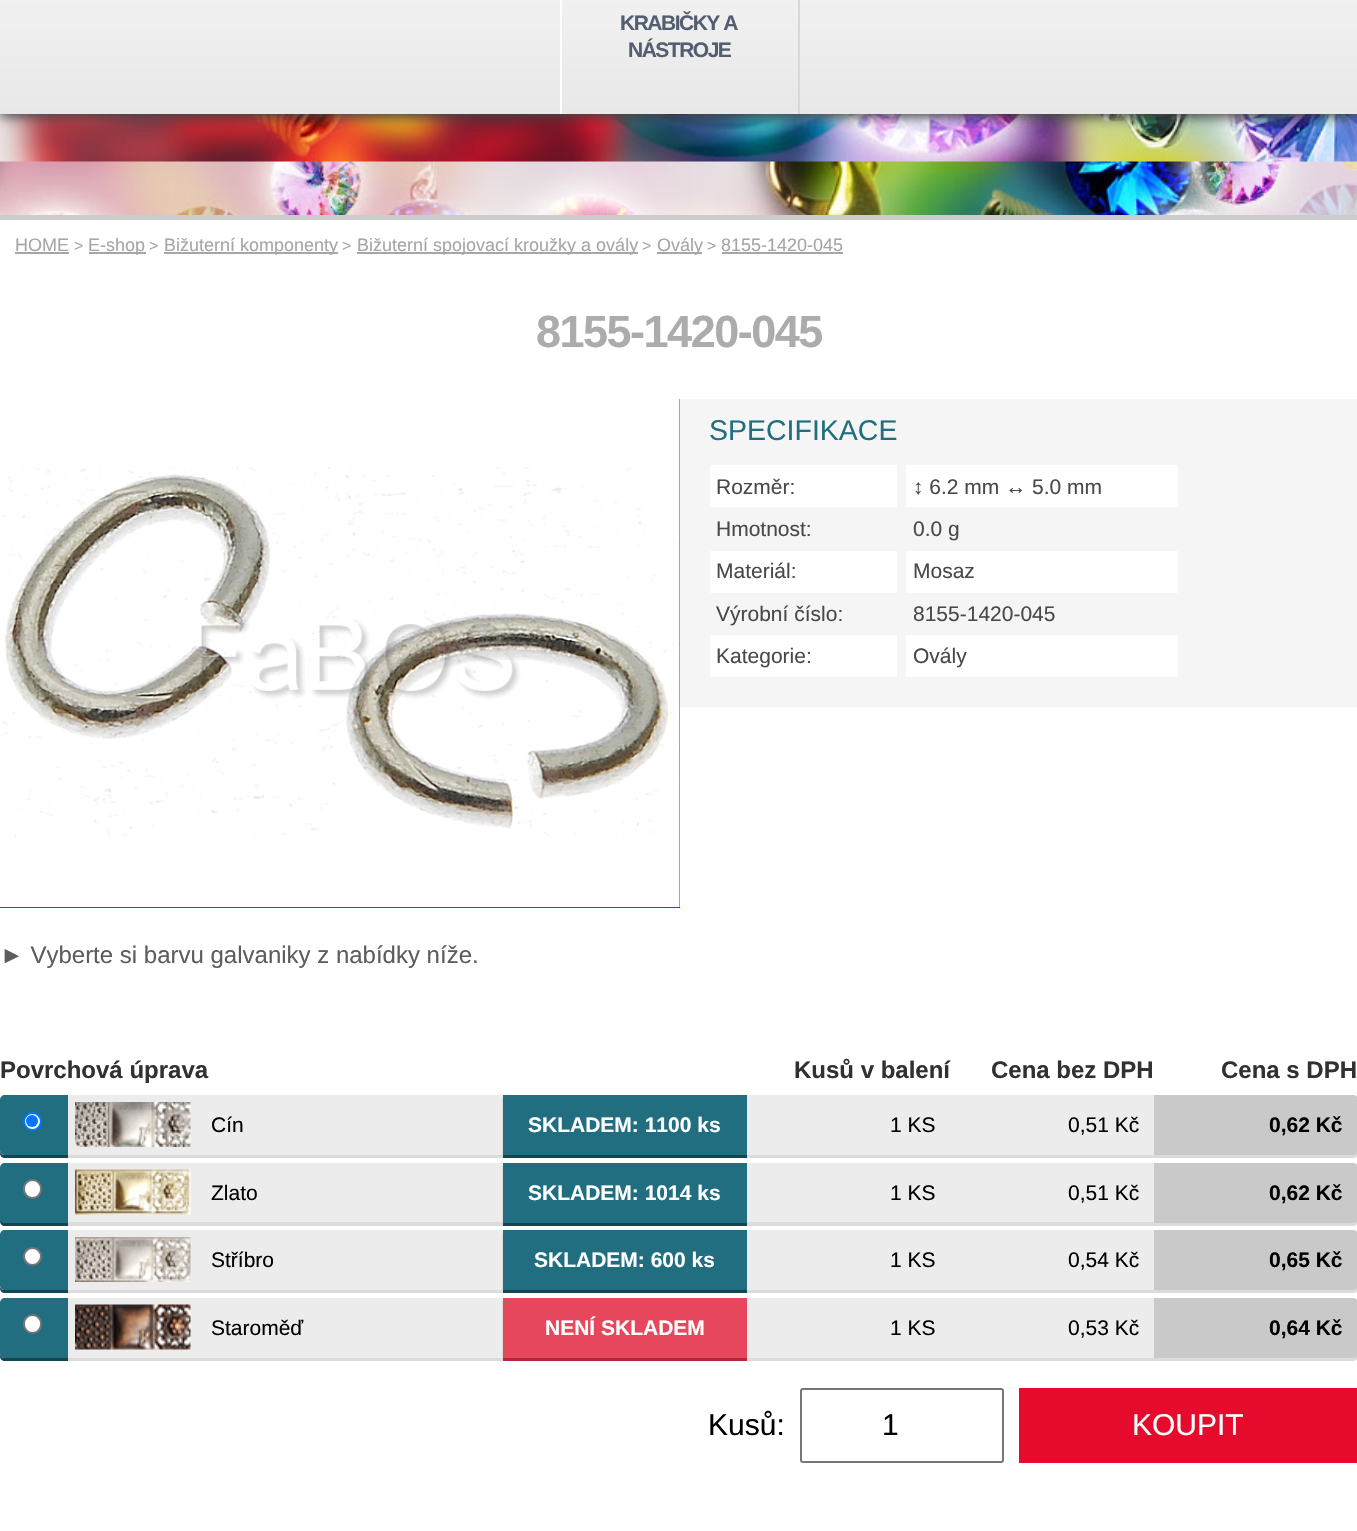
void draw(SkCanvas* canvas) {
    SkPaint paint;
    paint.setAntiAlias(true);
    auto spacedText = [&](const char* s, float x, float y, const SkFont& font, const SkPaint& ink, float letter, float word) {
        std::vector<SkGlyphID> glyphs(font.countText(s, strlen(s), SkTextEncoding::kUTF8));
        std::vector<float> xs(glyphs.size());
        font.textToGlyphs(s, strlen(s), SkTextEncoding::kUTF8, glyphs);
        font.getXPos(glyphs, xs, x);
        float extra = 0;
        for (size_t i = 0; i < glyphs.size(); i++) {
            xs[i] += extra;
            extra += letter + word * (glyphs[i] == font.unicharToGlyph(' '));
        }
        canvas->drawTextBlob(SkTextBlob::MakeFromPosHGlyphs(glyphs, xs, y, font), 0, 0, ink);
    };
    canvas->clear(0xFFFFFFFF);
    canvas->drawImageRect(SkImages::DeferredFromEncodedData(SkData::MakeFromFileName("img1.png")), SkRect::MakeXYWH(0, 114, 1357, 101), SkSamplingOptions());
    paint.setColor(0xFFCCCCCC);
    canvas->drawRect(SkRect::MakeXYWH(0, 215, 1357, 5), paint);
    paint.setColor(0xFF444444);
    paint.setMaskFilter(SkMaskFilter::MakeBlur(kNormal_SkBlurStyle, 6));
    canvas->drawRect(SkRect::MakeXYWH(0, -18, 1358, 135), paint);
    paint.setMaskFilter(nullptr);
    {
        const SkColor colors[] = {0xFFFFFFFF, 0xFFE8E8E8};
        const float stops[] = {0, 1};
        const SkPoint ends[] = {{679, -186}, {679, 114}};
        paint.setShader(SkGradientShader::MakeLinear(ends, colors, stops, 2, SkTileMode::kClamp));
        paint.setAlpha(255);
    }
    canvas->drawRect(SkRect::MakeXYWH(0, 0, 1357, 114), paint);
    paint.setShader(nullptr);
    paint.setColor(0xFFD8D8D8);
    canvas->drawRect(SkRect::MakeXYWH(798, 0, 2, 114), paint);
    paint.setColor(0xFFFFFFFF);
    canvas->drawRect(SkRect::MakeXYWH(560, 0, 2, 114), paint);
    SkFont font1(fontMgr->matchFamilyStyle("Liberation Sans", SkFontStyle::Bold()), 21);
    font1.setSubpixel(true);
    paint.setColor(0xFF535E71);
    spacedText("KRABIČKY A", 620, 30, font1, paint, -1.5f, 0);
    spacedText("NÁSTROJE", 628, 57, font1, paint, -1.5f, 0);
    SkFont font2(fontMgr->matchFamilyStyle("Liberation Sans", SkFontStyle::Normal()), 18);
    font2.setSubpixel(true);
    paint.setColor(0xFFA6A6A6);
    canvas->drawString("HOME", 15, 251, font2, paint);
    canvas->drawRect(SkRect::MakeXYWH(15, 252, 54, 2), paint);
    SkFont font3(fontMgr->matchFamilyStyle("Liberation Sans", SkFontStyle::Normal()), 16);
    font3.setSubpixel(true);
    canvas->drawString(">", 74, 251, font3, paint);
    canvas->drawRect(SkRect::MakeXYWH(89, 252, 57, 2), paint);
    canvas->drawString("E-shop", 88, 251, font2, paint);
    canvas->drawString(">", 149, 251, font3, paint);
    canvas->drawRect(SkRect::MakeXYWH(164, 252, 174, 2), paint);
    canvas->drawString("Bižuterní komponenty", 164, 251, font2, paint);
    canvas->drawString(">", 342, 251, font3, paint);
    canvas->drawRect(SkRect::MakeXYWH(357, 252, 281, 2), paint);
    canvas->drawString("Bižuterní spojovací kroužky a ovály", 357, 251, font2, paint);
    canvas->drawString(">", 642, 251, font3, paint);
    canvas->drawRect(SkRect::MakeXYWH(657, 252, 45, 2), paint);
    canvas->drawString("Ovály", 657, 251, font2, paint);
    canvas->drawString(">", 707, 251, font3, paint);
    canvas->drawString("8155-1420-045", 721, 251, font2, paint);
    canvas->drawRect(SkRect::MakeXYWH(722, 252, 121, 2), paint);
    SkFont font4(fontMgr->matchFamilyStyle("Liberation Sans", SkFontStyle::Bold()), 45);
    font4.setSubpixel(true);
    paint.setColor(0xFFACACAC);
    spacedText("8155-1420-045", 536, 347, font4, paint, -1.5f, 0);
    paint.setColor(0xFFFF0000);
    canvas->drawRect(SkRect::MakeXYWH(0, 399, 680, 509), paint);
    canvas->drawImageRect(SkImages::DeferredFromEncodedData(SkData::MakeFromFileName("img2.png")), SkRect::MakeXYWH(0, 399, 680, 508), SkSamplingOptions());
    paint.setColor(0xFFF5F5F5);
    canvas->drawRect(SkRect::MakeXYWH(680, 399, 677, 308), paint);
    SkFont font5(fontMgr->matchFamilyStyle("Liberation Sans", SkFontStyle::Normal()), 28.5f);
    font5.setSubpixel(true);
    paint.setColor(0xFF216E80);
    canvas->drawString("SPECIFIKACE", 709, 440, font5, paint);
    paint.setColor(0xFFFFFFFF);
    canvas->drawRect(SkRect::MakeXYWH(710, 465, 187, 42), paint);
    SkFont font6(fontMgr->matchFamilyStyle("Liberation Sans", SkFontStyle::Normal()), 21);
    font6.setSubpixel(true);
    paint.setColor(0xFF494949);
    canvas->drawString("Rozměr:", 716, 494, font6, paint);
    paint.setColor(0xFFFFFFFF);
    canvas->drawRect(SkRect::MakeXYWH(906, 465, 272, 42), paint);
    paint.setColor(0xFF494949);
    canvas->drawString("↕ 6.2 mm ↔ 5.0 mm", 913, 494, font6, paint);
    canvas->drawString("Hmotnost:", 716, 536, font6, paint);
    canvas->drawString("0.0 g", 913, 536, font6, paint);
    paint.setColor(0xFFFFFFFF);
    canvas->drawRect(SkRect::MakeXYWH(710, 551, 187, 42), paint);
    paint.setColor(0xFF494949);
    canvas->drawString("Materiál:", 716, 578, font6, paint);
    paint.setColor(0xFFFFFFFF);
    canvas->drawRect(SkRect::MakeXYWH(906, 551, 272, 42), paint);
    paint.setColor(0xFF494949);
    canvas->drawString("Mosaz", 913, 578, font6, paint);
    canvas->drawString("Výrobní číslo:", 716, 621, font6, paint);
    canvas->drawString("8155-1420-045", 913, 621, font6, paint);
    paint.setColor(0xFFFFFFFF);
    canvas->drawRect(SkRect::MakeXYWH(710, 635, 187, 42), paint);
    paint.setColor(0xFF494949);
    canvas->drawString("Kategorie:", 716, 663, font6, paint);
    paint.setColor(0xFFFFFFFF);
    canvas->drawRect(SkRect::MakeXYWH(906, 635, 272, 42), paint);
    paint.setColor(0xFF494949);
    canvas->drawString("Ovály", 913, 663, font6, paint);
    SkFont font7(fontMgr->matchFamilyStyle("Liberation Sans", SkFontStyle::Normal()), 24);
    font7.setSubpixel(true);
    paint.setColor(0xFF5D5D5D);
    canvas->drawString("► Vyberte si barvu galvaniky z nabídky níže.", 0, 963, font7, paint);
    SkFont font8(fontMgr->matchFamilyStyle("Liberation Sans", SkFontStyle::Bold()), 24);
    font8.setSubpixel(true);
    paint.setColor(0xFF313131);
    canvas->drawString("Povrchová úprava", 0, 1078, font8, paint);
    canvas->drawString("Kusů v balení", 794, 1078, font8, paint);
    canvas->drawString("Cena bez DPH", 991, 1078, font8, paint);
    canvas->drawString("Cena s DPH", 1221, 1078, font8, paint);
    paint.setColor(0xFFECECEC);
    canvas->drawRoundRect(SkRect::MakeXYWH(0, 1095, 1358, 60), 5, 5, paint);
    paint.setColor(0xFF114653);
    canvas->drawPath(SkPathBuilder().moveTo(0, 1150).lineTo(0, 1153).cubicTo(0, 1156, 2, 1158, 5, 1158).lineTo(68, 1158).lineTo(68, 1098).lineTo(68, 1155).lineTo(4, 1155).cubicTo(2, 1155, 0, 1153, 0, 1150).close().detach(), paint);
    paint.setColor(0xFF216E80);
    canvas->drawPath(SkPathBuilder().moveTo(5, 1095).lineTo(68, 1095).lineTo(68, 1155).lineTo(5, 1155).cubicTo(2, 1155, 0, 1153, 0, 1150).lineTo(0, 1100).cubicTo(0, 1097, 2, 1095, 5, 1095).close().detach(), paint);
    paint.setColor(0xFFFFFFFF);
    canvas->drawCircle(32.5f, 1121.5f, 8.5f, paint);
    paint.setStyle(SkPaint::kStroke_Style);
    paint.setStrokeWidth(2);
    paint.setColor(0xFF0075FF);
    canvas->drawCircle(32.5f, 1121.5f, 8.5f, paint);
    paint.setStyle(SkPaint::kFill_Style);
    canvas->drawCircle(32, 1121, 6, paint);
    paint.setColor(0xFFDBDBDB);
    canvas->drawRect(SkRect::MakeXYWH(68, 1155, 136, 3), paint);
    canvas->drawImageRect(SkImages::DeferredFromEncodedData(SkData::MakeFromFileName("img3.png")), SkRect::MakeXYWH(75, 1102, 116, 45), SkSamplingOptions());
    canvas->drawPath(SkPathBuilder().moveTo(204, 1155).lineTo(204, 1158).lineTo(503, 1158).lineTo(503, 1098).lineTo(502, 1098).lineTo(502, 1155).close().detach(), paint);
    paint.setColor(0xFF000000);
    canvas->drawString("Cín", 211, 1132, font6, paint);
    paint.setColor(0xFF114653);
    canvas->drawRect(SkRect::MakeXYWH(503, 1155, 244, 3), paint);
    paint.setColor(0xFF216E80);
    canvas->drawRect(SkRect::MakeXYWH(503, 1095, 244, 60), paint);
    paint.setColor(0xFFFFFFFF);
    canvas->drawString("SKLADEM: 1100 ks", 528, 1132, font1, paint);
    paint.setColor(0xFFDBDBDB);
    canvas->drawPath(SkPathBuilder().moveTo(747, 1155).lineTo(747, 1158).lineTo(950, 1158).lineTo(950, 1098).lineTo(950, 1155).close().detach(), paint);
    paint.setColor(0xFF000000);
    canvas->drawString("1 KS", 890, 1132, font6, paint);
    paint.setColor(0xFFDBDBDB);
    canvas->drawPath(SkPathBuilder().moveTo(950, 1155).lineTo(950, 1158).lineTo(1154, 1158).lineTo(1154, 1098).lineTo(1154, 1155).close().detach(), paint);
    paint.setColor(0xFF000000);
    canvas->drawString("0,51 Kč", 1068, 1132, font6, paint);
    paint.setColor(0xFFDBDBDB);
    canvas->drawPath(SkPathBuilder().moveTo(1154, 1155).lineTo(1154, 1158).lineTo(1353, 1158).cubicTo(1356, 1158, 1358, 1156, 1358, 1153).lineTo(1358, 1103).lineTo(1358, 1101).lineTo(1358, 1150).cubicTo(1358, 1153, 1355, 1155, 1353, 1155).close().detach(), paint);
    paint.setColor(0xFFC9C9C9);
    canvas->drawPath(SkPathBuilder().moveTo(1154, 1095).lineTo(1353, 1095).cubicTo(1356, 1095, 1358, 1097, 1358, 1100).lineTo(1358, 1150).cubicTo(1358, 1153, 1356, 1155, 1353, 1155).lineTo(1154, 1155).close().detach(), paint);
    paint.setColor(0xFF000000);
    canvas->drawString("0,62 Kč", 1269, 1132, font1, paint);
    paint.setColor(0xFFECECEC);
    canvas->drawRoundRect(SkRect::MakeXYWH(0, 1163, 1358, 60), 5, 5, paint);
    paint.setColor(0xFF114653);
    canvas->drawPath(SkPathBuilder().moveTo(0, 1218).lineTo(0, 1221).cubicTo(0, 1224, 2, 1226, 5, 1226).lineTo(68, 1226).lineTo(68, 1166).lineTo(68, 1222).lineTo(4, 1222).cubicTo(2, 1222, 0, 1220, 0, 1218).close().detach(), paint);
    paint.setColor(0xFF216E80);
    canvas->drawPath(SkPathBuilder().moveTo(5, 1163).lineTo(68, 1163).lineTo(68, 1223).lineTo(5, 1223).cubicTo(2, 1223, 0, 1221, 0, 1218).lineTo(0, 1168).cubicTo(0, 1165, 2, 1163, 5, 1163).close().detach(), paint);
    paint.setColor(0xFFFFFFFF);
    canvas->drawRoundRect(SkRect::MakeXYWH(24, 1180, 17, 18), 8.5f, 8.5f, paint);
    paint.setStyle(SkPaint::kStroke_Style);
    paint.setColor(0xFF767676);
    canvas->drawRoundRect(SkRect::MakeXYWH(24, 1180, 17, 18), 8.5f, 8.5f, paint);
    paint.setStyle(SkPaint::kFill_Style);
    paint.setColor(0xFFDBDBDB);
    canvas->drawRect(SkRect::MakeXYWH(68, 1222, 136, 4), paint);
    canvas->drawImageRect(SkImages::DeferredFromEncodedData(SkData::MakeFromFileName("img4.png")), SkRect::MakeXYWH(75, 1169, 116, 46), SkSamplingOptions());
    canvas->drawPath(SkPathBuilder().moveTo(204, 1222).lineTo(204, 1226).lineTo(503, 1226).lineTo(503, 1166).lineTo(502, 1166).lineTo(502, 1222).close().detach(), paint);
    paint.setColor(0xFF000000);
    canvas->drawString("Zlato", 211, 1200, font6, paint);
    paint.setColor(0xFF114653);
    canvas->drawRect(SkRect::MakeXYWH(503, 1223, 244, 3), paint);
    paint.setColor(0xFF216E80);
    canvas->drawRect(SkRect::MakeXYWH(503, 1163, 244, 60), paint);
    paint.setColor(0xFFFFFFFF);
    canvas->drawString("SKLADEM: 1014 ks", 528, 1200, font1, paint);
    paint.setColor(0xFFDBDBDB);
    canvas->drawPath(SkPathBuilder().moveTo(747, 1222).lineTo(747, 1226).lineTo(950, 1226).lineTo(950, 1166).lineTo(950, 1222).close().detach(), paint);
    paint.setColor(0xFF000000);
    canvas->drawString("1 KS", 890, 1200, font6, paint);
    paint.setColor(0xFFDBDBDB);
    canvas->drawPath(SkPathBuilder().moveTo(950, 1222).lineTo(950, 1226).lineTo(1154, 1226).lineTo(1154, 1166).lineTo(1154, 1222).close().detach(), paint);
    paint.setColor(0xFF000000);
    canvas->drawString("0,51 Kč", 1068, 1200, font6, paint);
    paint.setColor(0xFFDBDBDB);
    canvas->drawPath(SkPathBuilder().moveTo(1154, 1222).lineTo(1154, 1226).lineTo(1353, 1226).cubicTo(1356, 1226, 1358, 1224, 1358, 1221).lineTo(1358, 1171).lineTo(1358, 1169).lineTo(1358, 1218).cubicTo(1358, 1220, 1355, 1222, 1353, 1222).close().detach(), paint);
    paint.setColor(0xFFC9C9C9);
    canvas->drawPath(SkPathBuilder().moveTo(1154, 1163).lineTo(1353, 1163).cubicTo(1356, 1163, 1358, 1165, 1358, 1168).lineTo(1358, 1218).cubicTo(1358, 1221, 1356, 1223, 1353, 1223).lineTo(1154, 1223).close().detach(), paint);
    paint.setColor(0xFF000000);
    canvas->drawString("0,62 Kč", 1269, 1200, font1, paint);
    paint.setColor(0xFFECECEC);
    canvas->drawRoundRect(SkRect::MakeXYWH(0, 1230, 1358, 60), 5, 5, paint);
    paint.setColor(0xFF114653);
    canvas->drawPath(SkPathBuilder().moveTo(0, 1286).lineTo(0, 1288).cubicTo(0, 1291, 2, 1293, 5, 1293).lineTo(68, 1293).lineTo(68, 1233).lineTo(68, 1290).lineTo(4, 1290).cubicTo(2, 1290, 0, 1288, 0, 1286).close().detach(), paint);
    paint.setColor(0xFF216E80);
    canvas->drawPath(SkPathBuilder().moveTo(5, 1230).lineTo(68, 1230).lineTo(68, 1290).lineTo(5, 1290).cubicTo(2, 1290, 0, 1288, 0, 1285).lineTo(0, 1235).cubicTo(0, 1232, 2, 1230, 5, 1230).close().detach(), paint);
    paint.setColor(0xFFFFFFFF);
    canvas->drawCircle(32.5f, 1256.5f, 8.5f, paint);
    paint.setStyle(SkPaint::kStroke_Style);
    paint.setColor(0xFF767676);
    canvas->drawCircle(32.5f, 1256.5f, 8.5f, paint);
    paint.setStyle(SkPaint::kFill_Style);
    paint.setColor(0xFFDBDBDB);
    canvas->drawRect(SkRect::MakeXYWH(68, 1290, 136, 3), paint);
    canvas->drawImageRect(SkImages::DeferredFromEncodedData(SkData::MakeFromFileName("img5.png")), SkRect::MakeXYWH(75, 1237, 116, 45), SkSamplingOptions());
    canvas->drawPath(SkPathBuilder().moveTo(204, 1290).lineTo(204, 1293).lineTo(503, 1293).lineTo(503, 1233).lineTo(502, 1233).lineTo(502, 1290).close().detach(), paint);
    paint.setColor(0xFF000000);
    canvas->drawString("Stříbro", 211, 1267, font6, paint);
    paint.setColor(0xFF114653);
    canvas->drawRect(SkRect::MakeXYWH(503, 1290, 244, 3), paint);
    paint.setColor(0xFF216E80);
    canvas->drawRect(SkRect::MakeXYWH(503, 1230, 244, 60), paint);
    paint.setColor(0xFFFFFFFF);
    canvas->drawString("SKLADEM: 600 ks", 534, 1267, font1, paint);
    paint.setColor(0xFFDBDBDB);
    canvas->drawPath(SkPathBuilder().moveTo(747, 1290).lineTo(747, 1293).lineTo(950, 1293).lineTo(950, 1233).lineTo(950, 1290).close().detach(), paint);
    paint.setColor(0xFF000000);
    canvas->drawString("1 KS", 890, 1267, font6, paint);
    paint.setColor(0xFFDBDBDB);
    canvas->drawPath(SkPathBuilder().moveTo(950, 1290).lineTo(950, 1293).lineTo(1154, 1293).lineTo(1154, 1233).lineTo(1154, 1290).close().detach(), paint);
    paint.setColor(0xFF000000);
    canvas->drawString("0,54 Kč", 1068, 1267, font6, paint);
    paint.setColor(0xFFDBDBDB);
    canvas->drawPath(SkPathBuilder().moveTo(1154, 1290).lineTo(1154, 1293).lineTo(1353, 1293).cubicTo(1356, 1293, 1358, 1291, 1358, 1288).lineTo(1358, 1238).lineTo(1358, 1236).lineTo(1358, 1286).cubicTo(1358, 1288, 1355, 1290, 1353, 1290).close().detach(), paint);
    paint.setColor(0xFFC9C9C9);
    canvas->drawPath(SkPathBuilder().moveTo(1154, 1230).lineTo(1353, 1230).cubicTo(1356, 1230, 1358, 1232, 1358, 1235).lineTo(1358, 1285).cubicTo(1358, 1288, 1356, 1290, 1353, 1290).lineTo(1154, 1290).close().detach(), paint);
    paint.setColor(0xFF000000);
    canvas->drawString("0,65 Kč", 1269, 1267, font1, paint);
    paint.setColor(0xFFECECEC);
    canvas->drawRoundRect(SkRect::MakeXYWH(0, 1298, 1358, 60), 5, 5, paint);
    paint.setColor(0xFF114653);
    canvas->drawPath(SkPathBuilder().moveTo(0, 1353).lineTo(0, 1356).cubicTo(0, 1359, 2, 1361, 5, 1361).lineTo(68, 1361).lineTo(68, 1301).lineTo(68, 1358).lineTo(4, 1358).cubicTo(2, 1358, 0, 1355, 0, 1353).close().detach(), paint);
    paint.setColor(0xFF216E80);
    canvas->drawPath(SkPathBuilder().moveTo(5, 1298).lineTo(68, 1298).lineTo(68, 1358).lineTo(5, 1358).cubicTo(2, 1358, 0, 1356, 0, 1353).lineTo(0, 1303).cubicTo(0, 1300, 2, 1298, 5, 1298).close().detach(), paint);
    paint.setColor(0xFFFFFFFF);
    canvas->drawRoundRect(SkRect::MakeXYWH(24, 1315, 17, 18), 8.5f, 8.5f, paint);
    paint.setStyle(SkPaint::kStroke_Style);
    paint.setColor(0xFF767676);
    canvas->drawRoundRect(SkRect::MakeXYWH(24, 1315, 17, 18), 8.5f, 8.5f, paint);
    paint.setStyle(SkPaint::kFill_Style);
    paint.setColor(0xFFDBDBDB);
    canvas->drawRect(SkRect::MakeXYWH(68, 1358, 136, 3), paint);
    canvas->drawImageRect(SkImages::DeferredFromEncodedData(SkData::MakeFromFileName("img6.png")), SkRect::MakeXYWH(75, 1304, 116, 46), SkSamplingOptions());
    canvas->drawPath(SkPathBuilder().moveTo(204, 1358).lineTo(204, 1361).lineTo(503, 1361).lineTo(503, 1301).lineTo(502, 1301).lineTo(502, 1358).close().detach(), paint);
    paint.setColor(0xFF000000);
    canvas->drawString("Staroměď", 211, 1335, font6, paint);
    paint.setColor(0xFFB5283C);
    canvas->drawRect(SkRect::MakeXYWH(503, 1358, 244, 3), paint);
    paint.setColor(0xFFE6475D);
    canvas->drawRect(SkRect::MakeXYWH(503, 1298, 244, 60), paint);
    paint.setColor(0xFFFFFFFF);
    canvas->drawString("NENÍ SKLADEM", 545, 1335, font1, paint);
    paint.setColor(0xFFDBDBDB);
    canvas->drawPath(SkPathBuilder().moveTo(747, 1358).lineTo(747, 1361).lineTo(950, 1361).lineTo(950, 1301).lineTo(950, 1358).close().detach(), paint);
    paint.setColor(0xFF000000);
    canvas->drawString("1 KS", 890, 1335, font6, paint);
    paint.setColor(0xFFDBDBDB);
    canvas->drawPath(SkPathBuilder().moveTo(950, 1358).lineTo(950, 1361).lineTo(1154, 1361).lineTo(1154, 1301).lineTo(1154, 1358).close().detach(), paint);
    paint.setColor(0xFF000000);
    canvas->drawString("0,53 Kč", 1068, 1335, font6, paint);
    paint.setColor(0xFFDBDBDB);
    canvas->drawPath(SkPathBuilder().moveTo(1154, 1358).lineTo(1154, 1361).lineTo(1353, 1361).cubicTo(1356, 1361, 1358, 1359, 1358, 1356).lineTo(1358, 1306).lineTo(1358, 1304).lineTo(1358, 1353).cubicTo(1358, 1355, 1355, 1358, 1353, 1358).close().detach(), paint);
    paint.setColor(0xFFC9C9C9);
    canvas->drawPath(SkPathBuilder().moveTo(1154, 1298).lineTo(1353, 1298).cubicTo(1356, 1298, 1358, 1300, 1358, 1303).lineTo(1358, 1353).cubicTo(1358, 1356, 1356, 1358, 1353, 1358).lineTo(1154, 1358).close().detach(), paint);
    paint.setColor(0xFF000000);
    canvas->drawString("0,64 Kč", 1269, 1335, font1, paint);
    SkFont font9(fontMgr->matchFamilyStyle("Liberation Sans", SkFontStyle::Normal()), 30);
    font9.setSubpixel(true);
    canvas->drawString("Kusů:", 708, 1435, font9, paint);
    paint.setStyle(SkPaint::kStroke_Style);
    paint.setColor(0xFF767676);
    canvas->drawRoundRect(SkRect::MakeXYWH(801, 1389, 202, 73), 2, 2, paint);
    paint.setStyle(SkPaint::kFill_Style);
    paint.setColor(0xFF000000);
    canvas->drawString("1", 882, 1435, font9, paint);
    paint.setColor(0xFFE60B2D);
    canvas->drawRect(SkRect::MakeXYWH(1019, 1388, 338, 75), paint);
    paint.setColor(0xFFFFFFFF);
    canvas->drawString("KOUPIT", 1132, 1435, font9, paint);
}
